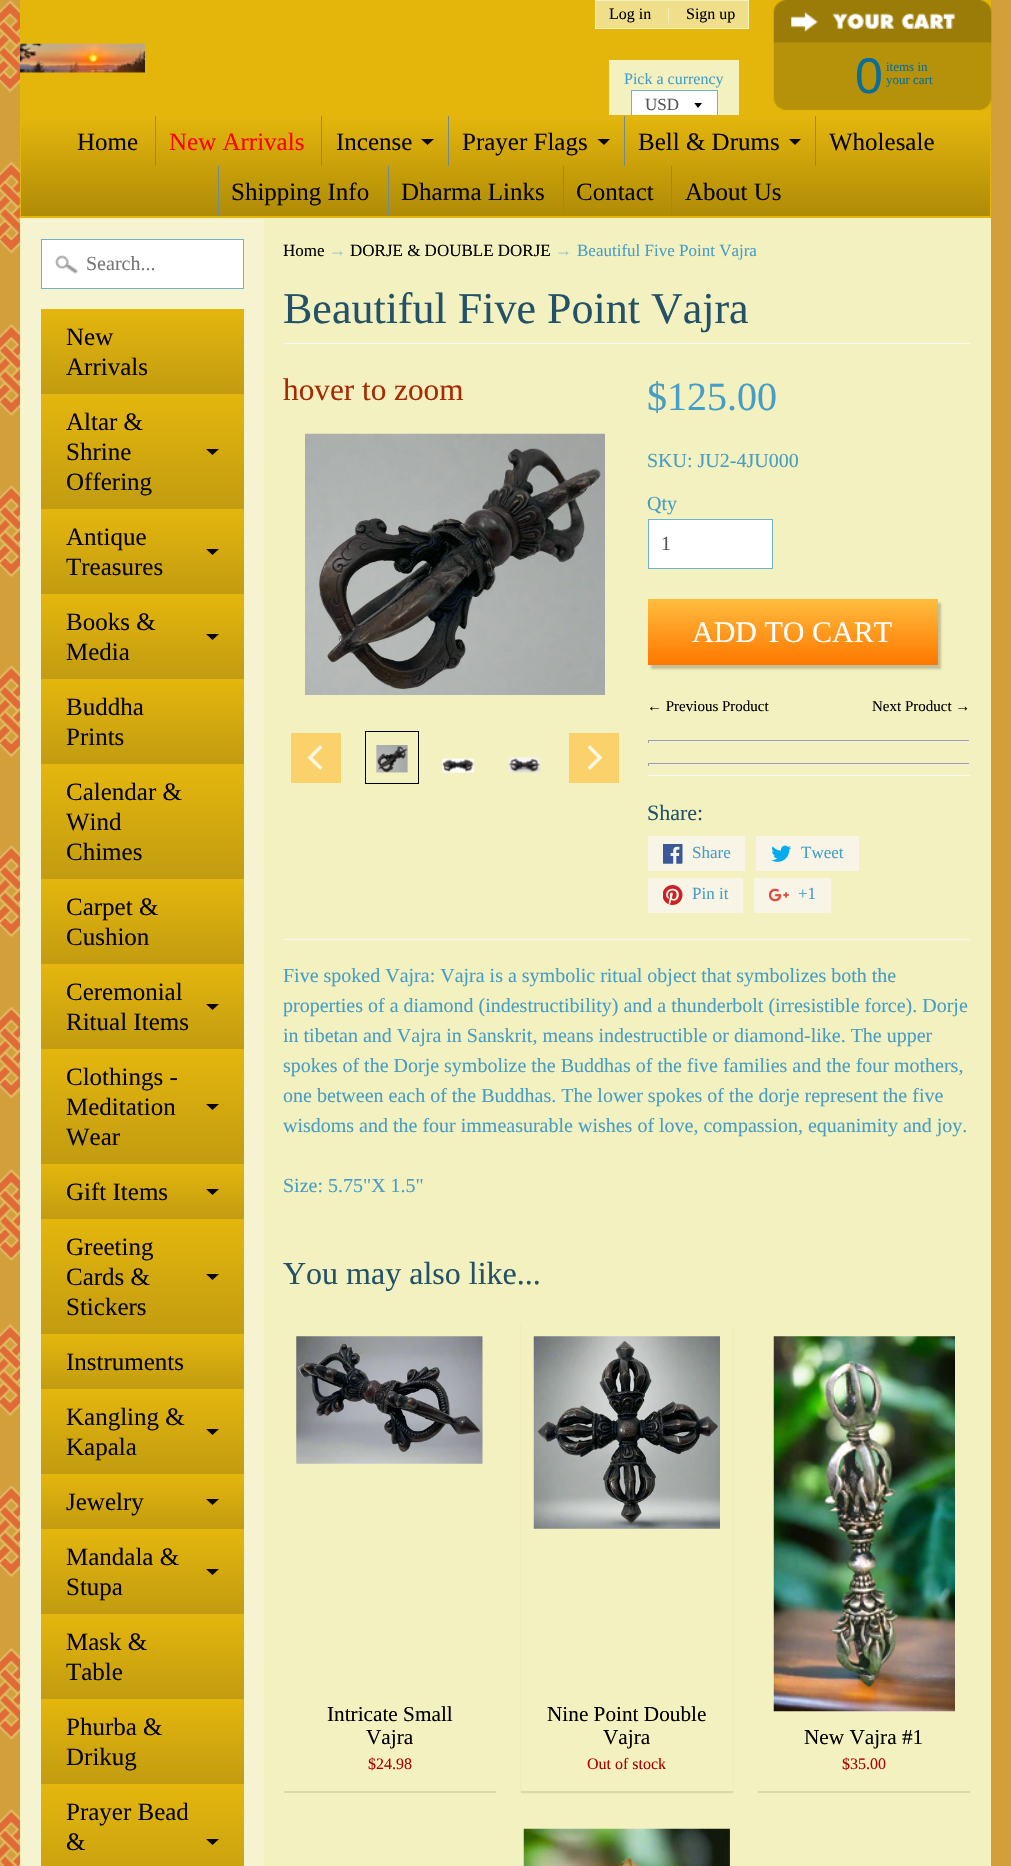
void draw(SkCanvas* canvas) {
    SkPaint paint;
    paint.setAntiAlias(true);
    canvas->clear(0xFFD29F3B);
    canvas->drawImageRect(SkImages::DeferredFromEncodedData(SkData::MakeFromFileName("img1.png")), SkRect::MakeXYWH(0, 0, 20, 1866), SkSamplingOptions());
    paint.setColor(0xFFE4B60C);
    canvas->drawRect(SkRect::MakeXYWH(20, 0, 971, 115), paint);
    paint.setColor(0xFFEFDF8A);
    canvas->drawRect(SkRect::MakeXYWH(595.5f, 0.5f, 153, 28), paint);
    paint.setStyle(SkPaint::kStroke_Style);
    paint.setStrokeWidth(1);
    paint.setColor(0xFFF4F1C0);
    canvas->drawRect(SkRect::MakeXYWH(595.5f, 0.5f, 153, 28), paint);
    SkFont font1(fontMgr->matchFamilyStyle("Liberation Serif", SkFontStyle::Normal()), 16);
    font1.setSubpixel(true);
    paint.setStyle(SkPaint::kFill_Style);
    paint.setColor(0xFF000000);
    canvas->drawString("Log in", 609, 19, font1, paint);
    paint.setColor(0xFFF4F1C0);
    canvas->drawString("|", 667, 19, font1, paint);
    paint.setColor(0xFF000000);
    canvas->drawString("Sign up", 686, 19, font1, paint);
    canvas->drawImageRect(SkImages::DeferredFromEncodedData(SkData::MakeFromFileName("img2.png")), SkRect::MakeXYWH(20, 43, 125, 30), SkSamplingOptions());
    canvas->drawImageRect(SkImages::DeferredFromEncodedData(SkData::MakeFromFileName("img3.png")), SkRect::MakeXYWH(773, 0, 219, 111), SkSamplingOptions());
    SkFont font2(fontMgr->matchFamilyStyle("Liberation Sans", SkFontStyle::Normal()), 50);
    font2.setSubpixel(true);
    paint.setColor(0xFF0A6E99);
    canvas->drawString("0", 855, 93, font2, paint);
    SkFont font3(fontMgr->matchFamilyStyle("Liberation Serif", SkFontStyle::Normal()), 13);
    font3.setSubpixel(true);
    canvas->drawString("items in", 886, 71, font3, paint);
    canvas->drawString("your cart", 886, 84, font3, paint);
    paint.setColor(0xFFF4F1C0);
    canvas->drawRect(SkRect::MakeXYWH(609, 60, 130, 55), paint);
    paint.setColor(0xFFFFFFFF);
    canvas->drawRect(SkRect::MakeXYWH(632, 91, 85, 24), paint);
    canvas->save();
    canvas->clipRect(SkRect::MakeXYWH(694, 103, 10, 6));
    paint.setColor(0xFF000000);
    canvas->drawPath(SkPathBuilder().moveTo(694, 102.5f).lineTo(698, 108).lineTo(702.5f, 102.5f).close().detach(), paint);
    canvas->restore();
    paint.setStyle(SkPaint::kStroke_Style);
    paint.setColor(0xFF70B1CC);
    canvas->drawRect(SkRect::MakeXYWH(631.5f, 90.5f, 86, 29), paint);
    paint.setStyle(SkPaint::kFill_Style);
    {
        const SkColor colors[] = {0xFFE4B60D, 0xFFAF8B07};
        const float stops[] = {0, 1};
        const SkPoint ends[] = {{506, 116}, {506, 216}};
        paint.setShader(SkGradientShader::MakeLinear(ends, colors, stops, 2, SkTileMode::kClamp));
        paint.setAlpha(255);
    }
    canvas->drawRect(SkRect::MakeXYWH(21, 116, 969, 100), paint);
    {
        const SkColor colors[] = {0xFFE4B60D, 0xFFAF8B07};
        const float stops[] = {0, 1};
        const SkPoint ends[] = {{506, 216}, {506, 316}};
        paint.setShader(SkGradientShader::MakeLinear(ends, colors, stops, 2, SkTileMode::kClamp));
        paint.setAlpha(255);
    }
    canvas->drawRect(SkRect::MakeXYWH(20, 216, 971, 1), paint);
    paint.setStyle(SkPaint::kStroke_Style);
    paint.setShader(nullptr);
    paint.setColor(0xFFE4B60D);
    canvas->drawRect(SkRect::MakeXYWH(20.5f, 115.5f, 970, 102), paint);
    SkFont font4(fontMgr->matchFamilyStyle("Liberation Serif", SkFontStyle::Normal()), 25);
    font4.setSubpixel(true);
    paint.setStyle(SkPaint::kFill_Style);
    paint.setColor(0xFF080602);
    canvas->drawString("Home", 77, 150, font4, paint);
    paint.setColor(0xFF6F8C8F);
    canvas->drawRect(SkRect::MakeXYWH(155, 116, 1, 50), paint);
    paint.setColor(0xFFFF0000);
    canvas->drawString("New Arrivals", 169, 150, font4, paint);
    paint.setColor(0xFF6F8C8F);
    canvas->drawRect(SkRect::MakeXYWH(321, 116, 1, 50), paint);
    paint.setColor(0xFF080602);
    canvas->drawString("Incense", 336, 150, font4, paint);
    paint.setColor(0xFF060603);
    canvas->drawPath(SkPathBuilder().moveTo(421, 139).lineTo(434, 139).lineTo(427.5f, 145).close().detach(), paint);
    paint.setColor(0xFF6F8C8F);
    canvas->drawRect(SkRect::MakeXYWH(448, 116, 1, 50), paint);
    paint.setColor(0xFF080602);
    canvas->drawString("Prayer Flags", 462, 150, font4, paint);
    paint.setColor(0xFF060603);
    canvas->drawPath(SkPathBuilder().moveTo(597.5f, 139).lineTo(610, 139).lineTo(604, 145).close().detach(), paint);
    paint.setColor(0xFF6F8C8F);
    canvas->drawRect(SkRect::MakeXYWH(624, 116, 1, 50), paint);
    paint.setColor(0xFF080602);
    canvas->drawString("Bell & Drums", 638, 150, font4, paint);
    paint.setColor(0xFF060603);
    canvas->drawPath(SkPathBuilder().moveTo(789, 139).lineTo(801, 139).lineTo(795, 145).close().detach(), paint);
    paint.setColor(0xFF6F8C8F);
    canvas->drawRect(SkRect::MakeXYWH(815, 116, 1, 50), paint);
    paint.setColor(0xFF080602);
    canvas->drawString("Wholesale", 829, 150, font4, paint);
    paint.setColor(0xFF6F8C8F);
    canvas->drawRect(SkRect::MakeXYWH(218, 166, 1, 50), paint);
    paint.setColor(0xFF080602);
    canvas->drawString("Shipping Info", 231, 200, font4, paint);
    paint.setColor(0xFF6F8C8F);
    canvas->drawRect(SkRect::MakeXYWH(388, 166, 1, 50), paint);
    paint.setColor(0xFF080602);
    canvas->drawString("Dharma Links", 401, 200, font4, paint);
    paint.setColor(0xFF6F8C8F);
    canvas->drawRect(SkRect::MakeXYWH(563, 166, 1, 50), paint);
    paint.setColor(0xFF080602);
    canvas->drawString("Contact", 576, 200, font4, paint);
    paint.setColor(0xFF6F8C8F);
    canvas->drawRect(SkRect::MakeXYWH(671, 166, 1, 50), paint);
    paint.setColor(0xFF080602);
    canvas->drawString("About Us", 685, 200, font4, paint);
    paint.setColor(0xFF469DC5);
    canvas->drawString("Pick a currency", 624, 84, font1, paint);
    SkFont font5(fontMgr->matchFamilyStyle("Liberation Serif", SkFontStyle::Normal()), 17);
    font5.setSubpixel(true);
    paint.setColor(0xFF555555);
    canvas->drawString("USD", 645, 110, font5, paint);
    paint.setColor(0xFFF4F1C0);
    canvas->drawRect(SkRect::MakeXYWH(20, 218, 971, 1648), paint);
    paint.setColor(0xFFF6F4D0);
    canvas->drawRect(SkRect::MakeXYWH(21, 219, 243, 1647), paint);
    paint.setColor(0xFFFFFFFF);
    canvas->drawRect(SkRect::MakeXYWH(42, 240, 201, 48), paint);
    canvas->drawImageRect(SkImages::DeferredFromEncodedData(SkData::MakeFromFileName("img4.png")), SkRect::MakeXYWH(55, 255, 23, 19), SkSamplingOptions());
    paint.setStyle(SkPaint::kStroke_Style);
    paint.setColor(0xFF70B1CC);
    canvas->drawRect(SkRect::MakeXYWH(41.5f, 239.5f, 202, 49), paint);
    SkFont font6(fontMgr->matchFamilyStyle("Liberation Serif", SkFontStyle::Normal()), 20);
    font6.setSubpixel(true);
    paint.setStyle(SkPaint::kFill_Style);
    paint.setColor(0xFF757575);
    canvas->drawString("Search...", 86, 270, font6, paint);
    {
        const SkColor colors[] = {0xFFE4B60D, 0xFFC29C11};
        const float stops[] = {0, 1};
        const SkPoint ends[] = {{143, 309}, {143, 394}};
        paint.setShader(SkGradientShader::MakeLinear(ends, colors, stops, 2, SkTileMode::kClamp));
        paint.setAlpha(255);
    }
    canvas->drawRect(SkRect::MakeXYWH(41, 309, 203, 85), paint);
    paint.setShader(nullptr);
    paint.setColor(0xFF080602);
    canvas->drawString("New", 66, 345, font4, paint);
    canvas->drawString("Arrivals", 66, 375, font4, paint);
    {
        const SkColor colors[] = {0xFFE4B60D, 0xFFC29C11};
        const float stops[] = {0, 1};
        const SkPoint ends[] = {{143, 394}, {143, 509}};
        paint.setShader(SkGradientShader::MakeLinear(ends, colors, stops, 2, SkTileMode::kClamp));
        paint.setAlpha(255);
    }
    canvas->drawRect(SkRect::MakeXYWH(41, 394, 203, 115), paint);
    paint.setShader(nullptr);
    paint.setColor(0xFF080602);
    canvas->drawString("Altar &", 66, 430, font4, paint);
    canvas->drawString("Shrine", 66, 460, font4, paint);
    canvas->drawPath(SkPathBuilder().moveTo(206, 449).lineTo(219, 449).lineTo(212.5f, 455).close().detach(), paint);
    canvas->drawString("Offering", 66, 490, font4, paint);
    {
        const SkColor colors[] = {0xFFE4B60D, 0xFFC29C11};
        const float stops[] = {0, 1};
        const SkPoint ends[] = {{143, 509}, {143, 594}};
        paint.setShader(SkGradientShader::MakeLinear(ends, colors, stops, 2, SkTileMode::kClamp));
        paint.setAlpha(255);
    }
    canvas->drawRect(SkRect::MakeXYWH(41, 509, 203, 85), paint);
    paint.setShader(nullptr);
    paint.setColor(0xFF080602);
    canvas->drawString("Antique", 66, 545, font4, paint);
    canvas->drawPath(SkPathBuilder().moveTo(206, 549).lineTo(219, 549).lineTo(212.5f, 555).close().detach(), paint);
    canvas->drawString("Treasures", 66, 575, font4, paint);
    {
        const SkColor colors[] = {0xFFE4B60D, 0xFFC29C11};
        const float stops[] = {0, 1};
        const SkPoint ends[] = {{143, 594}, {143, 679}};
        paint.setShader(SkGradientShader::MakeLinear(ends, colors, stops, 2, SkTileMode::kClamp));
        paint.setAlpha(255);
    }
    canvas->drawRect(SkRect::MakeXYWH(41, 594, 203, 85), paint);
    paint.setShader(nullptr);
    paint.setColor(0xFF080602);
    canvas->drawString("Books &", 66, 630, font4, paint);
    canvas->drawPath(SkPathBuilder().moveTo(206, 634).lineTo(219, 634).lineTo(212.5f, 640).close().detach(), paint);
    canvas->drawString("Media", 66, 660, font4, paint);
    {
        const SkColor colors[] = {0xFFE4B60D, 0xFFC29C11};
        const float stops[] = {0, 1};
        const SkPoint ends[] = {{143, 679}, {143, 764}};
        paint.setShader(SkGradientShader::MakeLinear(ends, colors, stops, 2, SkTileMode::kClamp));
        paint.setAlpha(255);
    }
    canvas->drawRect(SkRect::MakeXYWH(41, 679, 203, 85), paint);
    paint.setShader(nullptr);
    paint.setColor(0xFF080602);
    canvas->drawString("Buddha", 66, 715, font4, paint);
    canvas->drawString("Prints", 66, 745, font4, paint);
    {
        const SkColor colors[] = {0xFFE4B60D, 0xFFC29C11};
        const float stops[] = {0, 1};
        const SkPoint ends[] = {{143, 764}, {143, 879}};
        paint.setShader(SkGradientShader::MakeLinear(ends, colors, stops, 2, SkTileMode::kClamp));
        paint.setAlpha(255);
    }
    canvas->drawRect(SkRect::MakeXYWH(41, 764, 203, 115), paint);
    paint.setShader(nullptr);
    paint.setColor(0xFF080602);
    canvas->drawString("Calendar &", 66, 800, font4, paint);
    canvas->drawString("Wind", 66, 830, font4, paint);
    canvas->drawString("Chimes", 66, 860, font4, paint);
    {
        const SkColor colors[] = {0xFFE4B60D, 0xFFC29C11};
        const float stops[] = {0, 1};
        const SkPoint ends[] = {{143, 879}, {143, 964}};
        paint.setShader(SkGradientShader::MakeLinear(ends, colors, stops, 2, SkTileMode::kClamp));
        paint.setAlpha(255);
    }
    canvas->drawRect(SkRect::MakeXYWH(41, 879, 203, 85), paint);
    paint.setShader(nullptr);
    paint.setColor(0xFF080602);
    canvas->drawString("Carpet &", 66, 915, font4, paint);
    canvas->drawString("Cushion", 66, 945, font4, paint);
    {
        const SkColor colors[] = {0xFFE4B60D, 0xFFC29C11};
        const float stops[] = {0, 1};
        const SkPoint ends[] = {{143, 964}, {143, 1049}};
        paint.setShader(SkGradientShader::MakeLinear(ends, colors, stops, 2, SkTileMode::kClamp));
        paint.setAlpha(255);
    }
    canvas->drawRect(SkRect::MakeXYWH(41, 964, 203, 85), paint);
    paint.setShader(nullptr);
    paint.setColor(0xFF080602);
    canvas->drawString("Ceremonial", 66, 1000, font4, paint);
    canvas->drawPath(SkPathBuilder().moveTo(206, 1004).lineTo(219, 1004).lineTo(212.5f, 1010).close().detach(), paint);
    canvas->drawString("Ritual Items", 66, 1030, font4, paint);
    {
        const SkColor colors[] = {0xFFE4B60D, 0xFFC29C11};
        const float stops[] = {0, 1};
        const SkPoint ends[] = {{143, 1049}, {143, 1164}};
        paint.setShader(SkGradientShader::MakeLinear(ends, colors, stops, 2, SkTileMode::kClamp));
        paint.setAlpha(255);
    }
    canvas->drawRect(SkRect::MakeXYWH(41, 1049, 203, 115), paint);
    paint.setShader(nullptr);
    paint.setColor(0xFF080602);
    canvas->drawString("Clothings -", 66, 1085, font4, paint);
    canvas->drawString("Meditation", 66, 1115, font4, paint);
    canvas->drawPath(SkPathBuilder().moveTo(206, 1104).lineTo(219, 1104).lineTo(212.5f, 1110).close().detach(), paint);
    canvas->drawString("Wear", 66, 1145, font4, paint);
    {
        const SkColor colors[] = {0xFFE4B60D, 0xFFC29C11};
        const float stops[] = {0, 1};
        const SkPoint ends[] = {{143, 1164}, {143, 1219}};
        paint.setShader(SkGradientShader::MakeLinear(ends, colors, stops, 2, SkTileMode::kClamp));
        paint.setAlpha(255);
    }
    canvas->drawRect(SkRect::MakeXYWH(41, 1164, 203, 55), paint);
    paint.setShader(nullptr);
    paint.setColor(0xFF080602);
    canvas->drawString("Gift Items", 66, 1200, font4, paint);
    canvas->drawPath(SkPathBuilder().moveTo(206, 1189).lineTo(219, 1189).lineTo(212.5f, 1195).close().detach(), paint);
    {
        const SkColor colors[] = {0xFFE4B60D, 0xFFC29C11};
        const float stops[] = {0, 1};
        const SkPoint ends[] = {{143, 1219}, {143, 1334}};
        paint.setShader(SkGradientShader::MakeLinear(ends, colors, stops, 2, SkTileMode::kClamp));
        paint.setAlpha(255);
    }
    canvas->drawRect(SkRect::MakeXYWH(41, 1219, 203, 115), paint);
    paint.setShader(nullptr);
    paint.setColor(0xFF080602);
    canvas->drawString("Greeting", 66, 1255, font4, paint);
    canvas->drawString("Cards &", 66, 1285, font4, paint);
    canvas->drawPath(SkPathBuilder().moveTo(206, 1274).lineTo(219, 1274).lineTo(212.5f, 1280).close().detach(), paint);
    canvas->drawString("Stickers", 66, 1315, font4, paint);
    {
        const SkColor colors[] = {0xFFE4B60D, 0xFFC29C11};
        const float stops[] = {0, 1};
        const SkPoint ends[] = {{143, 1334}, {143, 1389}};
        paint.setShader(SkGradientShader::MakeLinear(ends, colors, stops, 2, SkTileMode::kClamp));
        paint.setAlpha(255);
    }
    canvas->drawRect(SkRect::MakeXYWH(41, 1334, 203, 55), paint);
    paint.setShader(nullptr);
    paint.setColor(0xFF080602);
    canvas->drawString("Instruments", 66, 1370, font4, paint);
    {
        const SkColor colors[] = {0xFFE4B60D, 0xFFC29C11};
        const float stops[] = {0, 1};
        const SkPoint ends[] = {{143, 1389}, {143, 1474}};
        paint.setShader(SkGradientShader::MakeLinear(ends, colors, stops, 2, SkTileMode::kClamp));
        paint.setAlpha(255);
    }
    canvas->drawRect(SkRect::MakeXYWH(41, 1389, 203, 85), paint);
    paint.setShader(nullptr);
    paint.setColor(0xFF080602);
    canvas->drawString("Kangling &", 66, 1425, font4, paint);
    canvas->drawPath(SkPathBuilder().moveTo(206, 1429).lineTo(219, 1429).lineTo(212.5f, 1435).close().detach(), paint);
    canvas->drawString("Kapala", 66, 1455, font4, paint);
    {
        const SkColor colors[] = {0xFFE4B60D, 0xFFC29C11};
        const float stops[] = {0, 1};
        const SkPoint ends[] = {{143, 1474}, {143, 1529}};
        paint.setShader(SkGradientShader::MakeLinear(ends, colors, stops, 2, SkTileMode::kClamp));
        paint.setAlpha(255);
    }
    canvas->drawRect(SkRect::MakeXYWH(41, 1474, 203, 55), paint);
    paint.setShader(nullptr);
    paint.setColor(0xFF080602);
    canvas->drawString("Jewelry", 66, 1510, font4, paint);
    canvas->drawPath(SkPathBuilder().moveTo(206, 1499).lineTo(219, 1499).lineTo(212.5f, 1505).close().detach(), paint);
    {
        const SkColor colors[] = {0xFFE4B60D, 0xFFC29C11};
        const float stops[] = {0, 1};
        const SkPoint ends[] = {{143, 1529}, {143, 1614}};
        paint.setShader(SkGradientShader::MakeLinear(ends, colors, stops, 2, SkTileMode::kClamp));
        paint.setAlpha(255);
    }
    canvas->drawRect(SkRect::MakeXYWH(41, 1529, 203, 85), paint);
    paint.setShader(nullptr);
    paint.setColor(0xFF080602);
    canvas->drawString("Mandala &", 66, 1565, font4, paint);
    canvas->drawPath(SkPathBuilder().moveTo(206, 1569).lineTo(219, 1569).lineTo(212.5f, 1575).close().detach(), paint);
    canvas->drawString("Stupa", 66, 1595, font4, paint);
    {
        const SkColor colors[] = {0xFFE4B60D, 0xFFC29C11};
        const float stops[] = {0, 1};
        const SkPoint ends[] = {{143, 1614}, {143, 1699}};
        paint.setShader(SkGradientShader::MakeLinear(ends, colors, stops, 2, SkTileMode::kClamp));
        paint.setAlpha(255);
    }
    canvas->drawRect(SkRect::MakeXYWH(41, 1614, 203, 85), paint);
    paint.setShader(nullptr);
    paint.setColor(0xFF080602);
    canvas->drawString("Mask &", 66, 1650, font4, paint);
    canvas->drawString("Table", 66, 1680, font4, paint);
    {
        const SkColor colors[] = {0xFFE4B60D, 0xFFC29C11};
        const float stops[] = {0, 1};
        const SkPoint ends[] = {{143, 1699}, {143, 1784}};
        paint.setShader(SkGradientShader::MakeLinear(ends, colors, stops, 2, SkTileMode::kClamp));
        paint.setAlpha(255);
    }
    canvas->drawRect(SkRect::MakeXYWH(41, 1699, 203, 85), paint);
    paint.setShader(nullptr);
    paint.setColor(0xFF080602);
    canvas->drawString("Phurba &", 66, 1735, font4, paint);
    canvas->drawString("Drikug", 66, 1765, font4, paint);
    {
        const SkColor colors[] = {0xFFE4B60D, 0xFFC29C11};
        const float stops[] = {0, 1};
        const SkPoint ends[] = {{143, 1784}, {143, 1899}};
        paint.setShader(SkGradientShader::MakeLinear(ends, colors, stops, 2, SkTileMode::kClamp));
        paint.setAlpha(255);
    }
    canvas->drawRect(SkRect::MakeXYWH(41, 1784, 203, 82), paint);
    paint.setShader(nullptr);
    paint.setColor(0xFF080602);
    canvas->drawString("Prayer Bead", 66, 1820, font4, paint);
    canvas->drawString("&", 66, 1850, font4, paint);
    canvas->drawPath(SkPathBuilder().moveTo(206, 1839).lineTo(219, 1839).lineTo(212.5f, 1845).close().detach(), paint);
    paint.setColor(0xFF000000);
    canvas->drawString("Home", 283, 256, font5, paint);
    paint.setColor(0xFF9DC7C3);
    canvas->drawString("→", 329, 256, font5, paint);
    paint.setColor(0xFF000000);
    canvas->drawString("DORJE & DOUBLE DORJE", 350, 256, font5, paint);
    paint.setColor(0xFF9DC7C3);
    canvas->drawString("→", 555, 256, font5, paint);
    paint.setColor(0xFF469DC5);
    canvas->drawString("Beautiful Five Point Vajra", 577, 256, font5, paint);
    paint.setColor(0xFFF9F7F7);
    canvas->drawRect(SkRect::MakeXYWH(284, 343, 686, 1), paint);
    SkFont font7(fontMgr->matchFamilyStyle("Liberation Serif", SkFontStyle::Normal()), 44);
    font7.setSubpixel(true);
    paint.setColor(0xFF235268);
    canvas->drawString("Beautiful Five Point Vajra", 283, 323, font7, paint);
    SkFont font8(fontMgr->matchFamilyStyle("Liberation Serif", SkFontStyle::Normal()), 31.25f);
    font8.setSubpixel(true);
    paint.setColor(0xFFA72A02);
    canvas->drawString("hover to zoom", 283, 400, font8, paint);
    canvas->drawImageRect(SkImages::DeferredFromEncodedData(SkData::MakeFromFileName("img5.png")), SkRect::MakeXYWH(305, 433, 300, 262), SkSamplingOptions());
    paint.setStyle(SkPaint::kStroke_Style);
    paint.setColor(0xFF000000);
    canvas->drawRect(SkRect::MakeXYWH(365.5f, 731.5f, 53, 52), paint);
    canvas->drawImageRect(SkImages::DeferredFromEncodedData(SkData::MakeFromFileName("img6.png")), SkRect::MakeXYWH(376, 745, 32, 28), SkSamplingOptions());
    canvas->drawImageRect(SkImages::DeferredFromEncodedData(SkData::MakeFromFileName("img7.png")), SkRect::MakeXYWH(442, 758, 33, 15), SkSamplingOptions());
    canvas->drawImageRect(SkImages::DeferredFromEncodedData(SkData::MakeFromFileName("img8.png")), SkRect::MakeXYWH(508, 757, 33, 16), SkSamplingOptions());
    paint.setStyle(SkPaint::kFill_Style);
    paint.setColor(0xFFFAD16A);
    canvas->drawRect(SkRect::MakeXYWH(291, 733, 50, 50), paint);
    paint.setColor(0xFFFAF8E0);
    canvas->drawPath(SkPathBuilder().moveTo(320, 745).lineTo(322.5f, 747.5f).lineTo(312.5f, 757.5f).lineTo(322.5f, 767.5f).lineTo(320, 770).lineTo(307.5f, 757.5f).close().detach(), paint);
    paint.setColor(0xFFFAD16A);
    canvas->drawRect(SkRect::MakeXYWH(569, 733, 50, 50), paint);
    paint.setColor(0xFFFAF8E0);
    canvas->drawPath(SkPathBuilder().moveTo(590, 770).lineTo(587.5f, 767.5f).lineTo(597.5f, 757.5f).lineTo(587.5f, 747.5f).lineTo(590, 745).lineTo(602.5f, 757.5f).close().detach(), paint);
    SkFont font9(fontMgr->matchFamilyStyle("Liberation Serif", SkFontStyle::Normal()), 40);
    font9.setSubpixel(true);
    paint.setColor(0xFF469DC5);
    canvas->drawString("$125.00", 647, 410, font9, paint);
    canvas->drawString("SKU: JU2-4JU000", 647, 467, font6, paint);
    canvas->drawString("Qty", 647, 510, font6, paint);
    paint.setColor(0xFFFFFFFF);
    canvas->drawRect(SkRect::MakeXYWH(648.5f, 519.5f, 124, 49), paint);
    paint.setStyle(SkPaint::kStroke_Style);
    paint.setColor(0xFF70B1CC);
    canvas->drawRect(SkRect::MakeXYWH(648.5f, 519.5f, 124, 49), paint);
    paint.setStyle(SkPaint::kFill_Style);
    paint.setColor(0xFF555555);
    canvas->drawString("1", 661, 550, font6, paint);
    paint.setColor(0x33000000);
    paint.setMaskFilter(SkMaskFilter::MakeBlur(kNormal_SkBlurStyle, 1));
    canvas->drawRect(SkRect::MakeXYWH(651, 603, 290, 66), paint);
    paint.setMaskFilter(nullptr);
    {
        const SkColor colors[] = {0xFFFFBD3E, 0xFFFF7700};
        const float stops[] = {0, 1};
        const SkPoint ends[] = {{793, 599}, {793, 665}};
        paint.setShader(SkGradientShader::MakeLinear(ends, colors, stops, 2, SkTileMode::kClamp));
        paint.setAlpha(255);
    }
    canvas->drawRect(SkRect::MakeXYWH(648, 599, 290, 66), paint);
    SkFont font10(fontMgr->matchFamilyStyle("Liberation Serif", SkFontStyle::Normal()), 30);
    font10.setSubpixel(true);
    paint.setShader(nullptr);
    paint.setColor(0xFFFFFFFF);
    canvas->drawString("ADD TO CART", 692, 642, font10, paint);
    SkFont font11(fontMgr->matchFamilyStyle("Liberation Serif", SkFontStyle::Normal()), 15);
    font11.setSubpixel(true);
    paint.setColor(0xFF000000);
    canvas->drawString("← Previous Product", 647, 711, font11, paint);
    canvas->drawString("Next Product →", 872, 711, font11, paint);
    paint.setColor(0xFF9F9F9F);
    canvas->drawRect(SkRect::MakeXYWH(648, 740, 322, 1), paint);
    paint.setColor(0xFFEEEEEE);
    canvas->drawRect(SkRect::MakeXYWH(969, 740, 1, 3), paint);
    canvas->drawRect(SkRect::MakeXYWH(648, 741, 322, 1), paint);
    paint.setColor(0xFF9F9F9F);
    canvas->drawRect(SkRect::MakeXYWH(648, 740, 1, 3), paint);
    canvas->drawRect(SkRect::MakeXYWH(648, 763, 322, 1), paint);
    paint.setColor(0xFFEEEEEE);
    canvas->drawRect(SkRect::MakeXYWH(969, 763, 1, 3), paint);
    canvas->drawRect(SkRect::MakeXYWH(648, 764, 322, 1), paint);
    paint.setColor(0xFF9F9F9F);
    canvas->drawRect(SkRect::MakeXYWH(648, 763, 1, 3), paint);
    paint.setColor(0xFFF9F7F7);
    canvas->drawRect(SkRect::MakeXYWH(648, 775, 322, 1), paint);
    SkFont font12(fontMgr->matchFamilyStyle("Liberation Serif", SkFontStyle::Normal()), 22);
    font12.setSubpixel(true);
    paint.setColor(0xFF235268);
    canvas->drawString("Share:", 647, 820, font12, paint);
    paint.setColor(0xFFF8F5E7);
    canvas->drawRect(SkRect::MakeXYWH(648, 836, 97, 35), paint);
    canvas->drawImageRect(SkImages::DeferredFromEncodedData(SkData::MakeFromFileName("img9.png")), SkRect::MakeXYWH(663, 844, 20, 20), SkSamplingOptions());
    paint.setColor(0xFF469DC5);
    canvas->drawString("Share", 692, 858, font5, paint);
    paint.setColor(0xFFF8F5E7);
    canvas->drawRect(SkRect::MakeXYWH(756, 836, 103, 35), paint);
    canvas->drawImageRect(SkImages::DeferredFromEncodedData(SkData::MakeFromFileName("img10.png")), SkRect::MakeXYWH(771, 845, 20, 17), SkSamplingOptions());
    paint.setColor(0xFF469DC5);
    canvas->drawString("Tweet", 801, 858, font5, paint);
    paint.setColor(0xFFF8F5E7);
    canvas->drawRect(SkRect::MakeXYWH(648, 878, 95, 35), paint);
    canvas->drawImageRect(SkImages::DeferredFromEncodedData(SkData::MakeFromFileName("img11.png")), SkRect::MakeXYWH(663, 885, 20, 20), SkSamplingOptions());
    paint.setColor(0xFF469DC5);
    canvas->drawString("Pin it", 692, 899, font5, paint);
    paint.setColor(0xFFF8F5E7);
    canvas->drawRect(SkRect::MakeXYWH(754, 878, 77, 35), paint);
    canvas->drawImageRect(SkImages::DeferredFromEncodedData(SkData::MakeFromFileName("img12.png")), SkRect::MakeXYWH(769, 888, 20, 14), SkSamplingOptions());
    paint.setColor(0xFF469DC5);
    canvas->drawString("+1", 798, 899, font5, paint);
    paint.setColor(0xFFF9F7F7);
    canvas->drawRect(SkRect::MakeXYWH(284, 939, 686, 1), paint);
    paint.setColor(0xFF469DC5);
    canvas->drawString("Five spoked Vajra: Vajra is a symbolic ritual object that symbolizes both the", 283, 982, font6, paint);
    canvas->drawString("properties of a diamond (indestructibility) and a thunderbolt (irresistible force). Dorje", 283, 1012, font6, paint);
    canvas->drawString("in tibetan and Vajra in Sanskrit, means indestructible or diamond-like. The upper", 283, 1042, font6, paint);
    canvas->drawString("spokes of the Dorje symbolize the Buddhas of the five families and the four mothers,", 283, 1072, font6, paint);
    canvas->drawString("one between each of the Buddhas. The lower spokes of the dorje represent the five", 283, 1102, font6, paint);
    canvas->drawString("wisdoms and the four immeasurable wishes of love, compassion, equanimity and joy.", 283, 1132, font6, paint);
    canvas->drawString("Size: 5.75\"X 1.5\"", 283, 1192, font6, paint);
    SkFont font13(fontMgr->matchFamilyStyle("Liberation Serif", SkFontStyle::Normal()), 32);
    font13.setSubpixel(true);
    paint.setColor(0xFF235268);
    canvas->drawString("You may also like...", 283, 1284, font13, paint);
    canvas->save();
    canvas->clipRect(SkRect::MakeXYWH(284, 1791, 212, 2));
    paint.setColor(0x1A000000);
    paint.setMaskFilter(SkMaskFilter::MakeBlur(kNormal_SkBlurStyle, 0.5f));
    canvas->drawRect(SkRect::MakeXYWH(284, 1325, 212, 468), paint);
    paint.setMaskFilter(nullptr);
    canvas->restore();
    canvas->drawImageRect(SkImages::DeferredFromEncodedData(SkData::MakeFromFileName("img13.png")), SkRect::MakeXYWH(296, 1336, 187, 128), SkSamplingOptions());
    SkFont font14(fontMgr->matchFamilyStyle("Liberation Serif", SkFontStyle::Normal()), 21.25f);
    font14.setSubpixel(true);
    paint.setColor(0xFF000000);
    canvas->drawString("Intricate Small", 327, 1721, font14, paint);
    canvas->drawString("Vajra", 366, 1744, font14, paint);
    paint.setColor(0xFFAA0000);
    canvas->drawString("$24.98", 368, 1769, font1, paint);
    canvas->save();
    canvas->clipPath(SkPathBuilder(SkPathFillType::kEvenOdd).moveTo(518, 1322).lineTo(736, 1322).lineTo(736, 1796).lineTo(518, 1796).close().moveTo(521, 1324).lineTo(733, 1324).lineTo(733, 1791).lineTo(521, 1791).close().detach(), true);
    paint.setColor(0x1A000000);
    paint.setMaskFilter(SkMaskFilter::MakeBlur(kNormal_SkBlurStyle, 0.5f));
    canvas->drawRect(SkRect::MakeXYWH(521, 1325, 212, 468), paint);
    paint.setMaskFilter(nullptr);
    canvas->restore();
    canvas->drawImageRect(SkImages::DeferredFromEncodedData(SkData::MakeFromFileName("img14.png")), SkRect::MakeXYWH(533, 1336, 187, 193), SkSamplingOptions());
    paint.setColor(0xFF000000);
    canvas->drawString("Nine Point Double", 547, 1721, font14, paint);
    canvas->drawString("Vajra", 603, 1744, font14, paint);
    paint.setColor(0xFFAA0000);
    canvas->drawString("Out of stock", 587, 1769, font1, paint);
    canvas->save();
    canvas->clipRect(SkRect::MakeXYWH(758, 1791, 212, 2));
    paint.setColor(0x1A000000);
    paint.setMaskFilter(SkMaskFilter::MakeBlur(kNormal_SkBlurStyle, 0.5f));
    canvas->drawRect(SkRect::MakeXYWH(758, 1325, 212, 468), paint);
    paint.setMaskFilter(nullptr);
    canvas->restore();
    canvas->drawImageRect(SkImages::DeferredFromEncodedData(SkData::MakeFromFileName("img15.png")), SkRect::MakeXYWH(773, 1336, 182, 376), SkSamplingOptions());
    paint.setColor(0xFF000000);
    canvas->drawString("New Vajra #1", 804, 1744, font14, paint);
    paint.setColor(0xFFAA0000);
    canvas->drawString("$35.00", 842, 1769, font1, paint);
    canvas->drawImageRect(SkImages::DeferredFromEncodedData(SkData::MakeFromFileName("img16.png")), SkRect::MakeXYWH(523, 1828, 207, 38), SkSamplingOptions());
}
